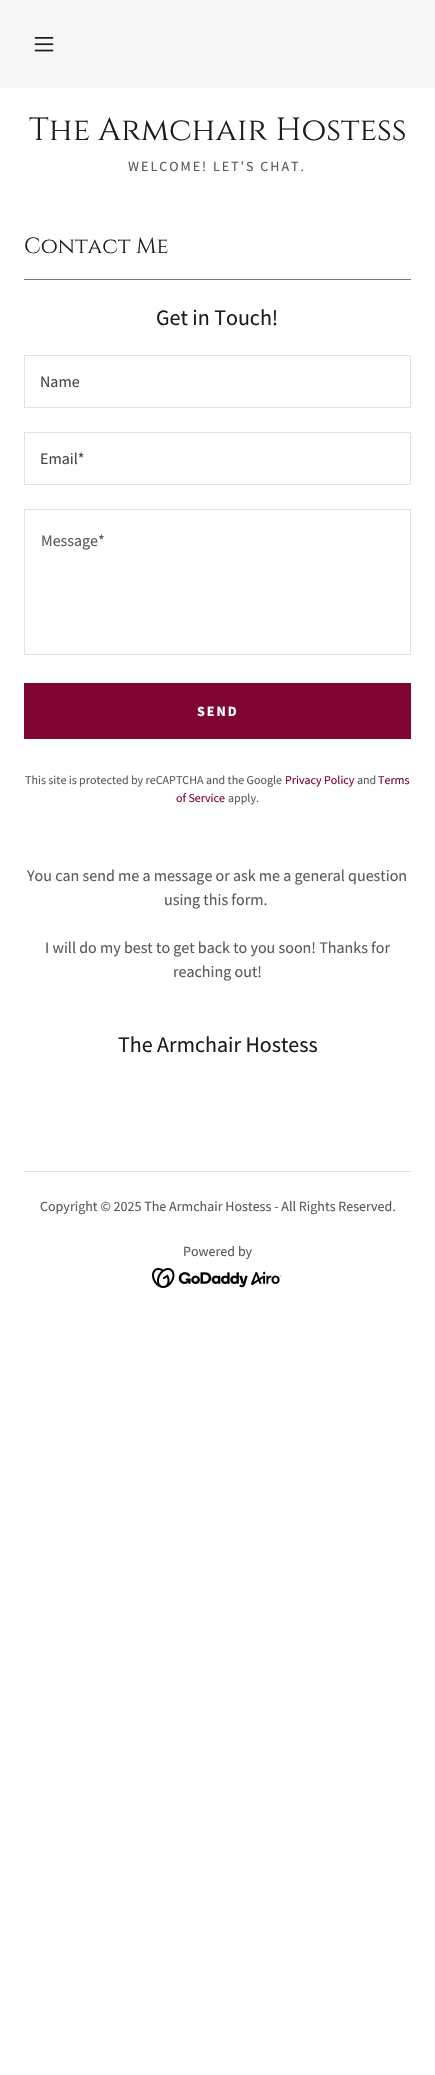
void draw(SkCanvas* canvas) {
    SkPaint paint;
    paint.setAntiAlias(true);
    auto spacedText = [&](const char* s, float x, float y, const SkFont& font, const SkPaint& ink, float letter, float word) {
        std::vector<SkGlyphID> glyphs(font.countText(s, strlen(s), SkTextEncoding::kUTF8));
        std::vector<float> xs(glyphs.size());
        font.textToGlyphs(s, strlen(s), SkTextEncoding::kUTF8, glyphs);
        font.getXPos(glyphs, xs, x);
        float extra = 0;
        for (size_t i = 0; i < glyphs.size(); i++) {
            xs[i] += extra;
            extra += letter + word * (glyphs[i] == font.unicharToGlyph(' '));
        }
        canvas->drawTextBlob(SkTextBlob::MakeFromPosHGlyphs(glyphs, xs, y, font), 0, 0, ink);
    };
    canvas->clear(0xFFFFFFFF);
    paint.setColor(0xFFF6F6F6);
    canvas->drawRect(SkRect::MakeXYWH(0, 0, 435, 88), paint);
    canvas->drawImageRect(SkImages::DeferredFromEncodedData(SkData::MakeFromFileName("img1.png")), SkRect::MakeXYWH(34, 37, 20, 15), SkSamplingOptions());
    SkFont font1(fontMgr->matchFamilyStyle("Cinzel", SkFontStyle::Normal()), 32);
    font1.setSubpixel(true);
    paint.setColor(0xFF1B1B1B);
    canvas->drawString("The Armchair Hostess", 29, 140, font1, paint);
    SkFont font2(fontMgr->matchFamilyStyle("Source Sans Pro", SkFontStyle::Normal()), 14);
    font2.setSubpixel(true);
    paint.setColor(0xFF595959);
    spacedText("WELCOME! LET'S CHAT.", 128, 171, font2, paint, 2, 0);
    SkFont font3(fontMgr->matchFamilyStyle("Cinzel", SkFontStyle::Normal()), 22);
    font3.setSubpixel(true);
    paint.setColor(0xFF1B1B1B);
    canvas->drawString("Contact Me", 24, 253, font3, paint);
    paint.setColor(0xFF777777);
    canvas->drawRect(SkRect::MakeXYWH(24, 279, 387, 1), paint);
    SkFont font4(fontMgr->matchFamilyStyle("Source Sans Pro", SkFontStyle::Normal()), 22);
    font4.setSubpixel(true);
    paint.setColor(0xFF1B1B1B);
    canvas->drawString("Get in Touch!", 156, 325, font4, paint);
    paint.setStyle(SkPaint::kStroke_Style);
    paint.setStrokeWidth(1);
    paint.setColor(0xFFE2E2E2);
    canvas->drawRect(SkRect::MakeXYWH(24.5f, 355.5f, 386, 52), paint);
    SkFont font5(fontMgr->matchFamilyStyle("Source Sans Pro", SkFontStyle::Normal()), 16);
    font5.setSubpixel(true);
    paint.setStyle(SkPaint::kFill_Style);
    paint.setColor(0xFF474747);
    canvas->drawString("Name", 40, 387, font5, paint);
    paint.setStyle(SkPaint::kStroke_Style);
    paint.setColor(0xFFE2E2E2);
    canvas->drawRect(SkRect::MakeXYWH(24.5f, 432.5f, 386, 52), paint);
    paint.setStyle(SkPaint::kFill_Style);
    paint.setColor(0xFF474747);
    canvas->drawString("Email*", 40, 464, font5, paint);
    paint.setStyle(SkPaint::kStroke_Style);
    paint.setColor(0xFFE2E2E2);
    canvas->drawRect(SkRect::MakeXYWH(24.5f, 509.5f, 386, 145), paint);
    paint.setStyle(SkPaint::kFill_Style);
    paint.setColor(0xFF595959);
    canvas->drawString("Message*", 41, 546, font5, paint);
    paint.setColor(0xFF7F0532);
    canvas->drawRect(SkRect::MakeXYWH(24, 683, 387, 56), paint);
    SkFont font6(fontMgr->matchFamilyStyle("Source Sans Pro", SkFontStyle::Bold()), 14);
    font6.setSubpixel(true);
    paint.setColor(0xFFFFFFFF);
    spacedText("SEND", 197, 716, font6, paint, 2, 0);
    SkFont font7(fontMgr->matchFamilyStyle("Source Sans Pro", SkFontStyle::Normal()), 12);
    font7.setSubpixel(true);
    paint.setColor(0xFF595959);
    canvas->drawString("This site is protected by reCAPTCHA and the Google", 25, 784, font7, paint);
    paint.setColor(0xFF7F0532);
    canvas->drawString("Privacy Policy", 285, 784, font7, paint);
    paint.setColor(0xFF595959);
    canvas->drawString("and", 357, 784, font7, paint);
    paint.setColor(0xFF7F0532);
    canvas->drawString("Terms", 378, 784, font7, paint);
    canvas->drawString("of Service", 176, 802, font7, paint);
    paint.setColor(0xFF595959);
    canvas->drawString("apply.", 228, 802, font7, paint);
    canvas->drawString("You can send me a message or ask me a general question", 27, 881, font5, paint);
    canvas->drawString("using this form.", 164, 905, font5, paint);
    canvas->drawString("I will do my best to get back to you soon! Thanks for", 45, 953, font5, paint);
    canvas->drawString("reaching out!", 173, 977, font5, paint);
    paint.setColor(0xFF1B1B1B);
    canvas->drawString("The Armchair Hostess", 118, 1052, font4, paint);
    paint.setColor(0xFFE2E2E2);
    canvas->drawRect(SkRect::MakeXYWH(24, 1171, 387, 1), paint);
    paint.setColor(0xFF595959);
    canvas->drawString("Copyright © 2025 The Armchair Hostess - All Rights Reserved.", 40, 1211, font2, paint);
    canvas->drawString("Powered by", 183, 1256, font2, paint);
    canvas->drawImageRect(SkImages::DeferredFromEncodedData(SkData::MakeFromFileName("img2.png")), SkRect::MakeXYWH(152, 1268, 130, 20), SkSamplingOptions());
}
